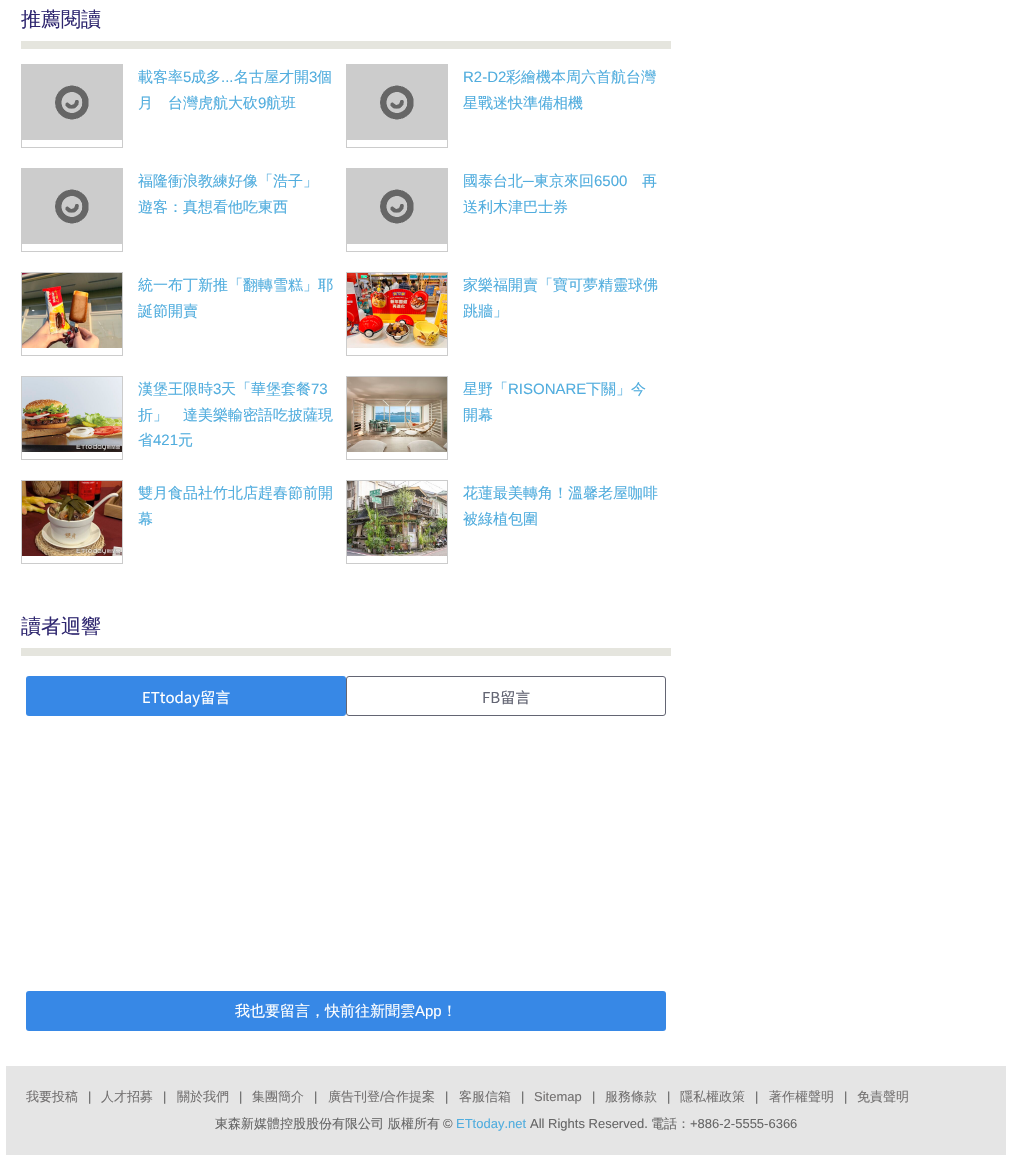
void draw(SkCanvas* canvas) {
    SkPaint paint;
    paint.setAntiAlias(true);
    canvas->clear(0xFFFFFFFF);
    paint.setColor(0xFFE5E5DE);
    canvas->drawRect(SkRect::MakeXYWH(21, 41, 650, 8), paint);
    SkFont font1(fontMgr->matchFamilyStyle("WenQuanYi Zen Hei", SkFontStyle(500, SkFontStyle::kNormal_Width, SkFontStyle::kUpright_Slant)), 20);
    font1.setSubpixel(true);
    paint.setColor(0xFF2E266F);
    canvas->drawString("推薦閱讀", 21, 26, font1, paint);
    paint.setStyle(SkPaint::kStroke_Style);
    paint.setStrokeWidth(1);
    paint.setColor(0xFFCCCCCC);
    canvas->drawRect(SkRect::MakeXYWH(21.5f, 64.5f, 101, 83), paint);
    canvas->drawImageRect(SkImages::DeferredFromEncodedData(SkData::MakeFromFileName("img1.png")), SkRect::MakeXYWH(22, 65, 100, 75), SkSamplingOptions());
    SkFont font2(fontMgr->matchFamilyStyle("WenQuanYi Zen Hei", SkFontStyle(500, SkFontStyle::kNormal_Width, SkFontStyle::kUpright_Slant)), 15);
    font2.setSubpixel(true);
    paint.setStyle(SkPaint::kFill_Style);
    paint.setColor(0xFF51ADDE);
    canvas->drawString("載客率", 138, 82, font2, paint);
    SkFont font3(fontMgr->matchFamilyStyle("Liberation Sans", SkFontStyle::Normal()), 15);
    font3.setSubpixel(true);
    canvas->drawString("5", 183, 82, font3, paint);
    canvas->drawString("成多", 191, 82, font2, paint);
    canvas->drawString("...", 221, 82, font3, paint);
    canvas->drawString("名古屋才開", 234, 82, font2, paint);
    canvas->drawString("3", 309, 82, font3, paint);
    canvas->drawString("個", 317, 82, font2, paint);
    canvas->drawString("月　台灣虎航大砍", 138, 108, font2, paint);
    canvas->drawString("9", 258, 108, font3, paint);
    canvas->drawString("航班", 266, 108, font2, paint);
    paint.setStyle(SkPaint::kStroke_Style);
    paint.setColor(0xFFCCCCCC);
    canvas->drawRect(SkRect::MakeXYWH(346.5f, 64.5f, 101, 83), paint);
    canvas->drawImageRect(SkImages::DeferredFromEncodedData(SkData::MakeFromFileName("img1.png")), SkRect::MakeXYWH(347, 65, 100, 75), SkSamplingOptions());
    paint.setStyle(SkPaint::kFill_Style);
    paint.setColor(0xFF51ADDE);
    canvas->drawString("R2-D2", 463, 82, font3, paint);
    canvas->drawString("彩繪機本周六首航台灣", 506, 82, font2, paint);
    canvas->drawString("星戰迷快準備相機", 463, 108, font2, paint);
    paint.setStyle(SkPaint::kStroke_Style);
    paint.setColor(0xFFCCCCCC);
    canvas->drawRect(SkRect::MakeXYWH(21.5f, 168.5f, 101, 83), paint);
    canvas->drawImageRect(SkImages::DeferredFromEncodedData(SkData::MakeFromFileName("img1.png")), SkRect::MakeXYWH(22, 169, 100, 75), SkSamplingOptions());
    paint.setStyle(SkPaint::kFill_Style);
    paint.setColor(0xFF51ADDE);
    canvas->drawString("福隆衝浪教練好像「浩子」", 138, 186, font2, paint);
    canvas->drawString("遊客：真想看他吃東西", 138, 212, font2, paint);
    paint.setStyle(SkPaint::kStroke_Style);
    paint.setColor(0xFFCCCCCC);
    canvas->drawRect(SkRect::MakeXYWH(346.5f, 168.5f, 101, 83), paint);
    canvas->drawImageRect(SkImages::DeferredFromEncodedData(SkData::MakeFromFileName("img1.png")), SkRect::MakeXYWH(347, 169, 100, 75), SkSamplingOptions());
    paint.setStyle(SkPaint::kFill_Style);
    paint.setColor(0xFF51ADDE);
    canvas->drawString("國泰台北", 463, 186, font2, paint);
    canvas->drawString("─", 523, 186, font3, paint);
    canvas->drawString("東京來回", 534, 186, font2, paint);
    canvas->drawString("6500", 594, 186, font3, paint);
    canvas->drawString("再", 642, 186, font2, paint);
    canvas->drawString("送利木津巴士券", 463, 212, font2, paint);
    paint.setStyle(SkPaint::kStroke_Style);
    paint.setColor(0xFFCCCCCC);
    canvas->drawRect(SkRect::MakeXYWH(21.5f, 272.5f, 101, 83), paint);
    canvas->drawImageRect(SkImages::DeferredFromEncodedData(SkData::MakeFromFileName("img2.png")), SkRect::MakeXYWH(22, 273, 100, 75), SkSamplingOptions());
    paint.setStyle(SkPaint::kFill_Style);
    paint.setColor(0xFF51ADDE);
    canvas->drawString("統一布丁新推「翻轉雪糕」耶", 138, 290, font2, paint);
    canvas->drawString("誕節開賣", 138, 316, font2, paint);
    paint.setStyle(SkPaint::kStroke_Style);
    paint.setColor(0xFFCCCCCC);
    canvas->drawRect(SkRect::MakeXYWH(346.5f, 272.5f, 101, 83), paint);
    canvas->drawImageRect(SkImages::DeferredFromEncodedData(SkData::MakeFromFileName("img3.png")), SkRect::MakeXYWH(347, 273, 100, 75), SkSamplingOptions());
    paint.setStyle(SkPaint::kFill_Style);
    paint.setColor(0xFF51ADDE);
    canvas->drawString("家樂福開賣「寶可夢精靈球佛", 463, 290, font2, paint);
    canvas->drawString("跳牆」", 463, 316, font2, paint);
    paint.setStyle(SkPaint::kStroke_Style);
    paint.setColor(0xFFCCCCCC);
    canvas->drawRect(SkRect::MakeXYWH(21.5f, 376.5f, 101, 83), paint);
    canvas->drawImageRect(SkImages::DeferredFromEncodedData(SkData::MakeFromFileName("img4.png")), SkRect::MakeXYWH(22, 377, 100, 75), SkSamplingOptions());
    paint.setStyle(SkPaint::kFill_Style);
    paint.setColor(0xFF51ADDE);
    canvas->drawString("漢堡王限時", 138, 394, font2, paint);
    canvas->drawString("3", 213, 394, font3, paint);
    canvas->drawString("天「華堡套餐", 221, 394, font2, paint);
    canvas->drawString("73", 311, 394, font3, paint);
    canvas->drawString("折」　達美樂輸密語吃披薩現", 138, 420, font2, paint);
    canvas->drawString("省", 138, 445, font2, paint);
    canvas->drawString("421", 153, 445, font3, paint);
    canvas->drawString("元", 178, 445, font2, paint);
    paint.setStyle(SkPaint::kStroke_Style);
    paint.setColor(0xFFCCCCCC);
    canvas->drawRect(SkRect::MakeXYWH(346.5f, 376.5f, 101, 83), paint);
    canvas->drawImageRect(SkImages::DeferredFromEncodedData(SkData::MakeFromFileName("img5.png")), SkRect::MakeXYWH(347, 377, 100, 75), SkSamplingOptions());
    paint.setStyle(SkPaint::kFill_Style);
    paint.setColor(0xFF51ADDE);
    canvas->drawString("星野「", 463, 394, font2, paint);
    canvas->drawString("RISONARE", 508, 394, font3, paint);
    canvas->drawString("下關」今", 586, 394, font2, paint);
    canvas->drawString("開幕", 463, 420, font2, paint);
    paint.setStyle(SkPaint::kStroke_Style);
    paint.setColor(0xFFCCCCCC);
    canvas->drawRect(SkRect::MakeXYWH(21.5f, 480.5f, 101, 83), paint);
    canvas->drawImageRect(SkImages::DeferredFromEncodedData(SkData::MakeFromFileName("img6.png")), SkRect::MakeXYWH(22, 481, 100, 75), SkSamplingOptions());
    paint.setStyle(SkPaint::kFill_Style);
    paint.setColor(0xFF51ADDE);
    canvas->drawString("雙月食品社竹北店趕春節前開", 138, 498, font2, paint);
    canvas->drawString("幕", 138, 524, font2, paint);
    paint.setStyle(SkPaint::kStroke_Style);
    paint.setColor(0xFFCCCCCC);
    canvas->drawRect(SkRect::MakeXYWH(346.5f, 480.5f, 101, 83), paint);
    canvas->drawImageRect(SkImages::DeferredFromEncodedData(SkData::MakeFromFileName("img7.png")), SkRect::MakeXYWH(347, 481, 100, 75), SkSamplingOptions());
    paint.setStyle(SkPaint::kFill_Style);
    paint.setColor(0xFF51ADDE);
    canvas->drawString("花蓮最美轉角！溫馨老屋咖啡", 463, 498, font2, paint);
    canvas->drawString("被綠植包圍", 463, 524, font2, paint);
    paint.setColor(0xFFE5E5DE);
    canvas->drawRect(SkRect::MakeXYWH(21, 648, 650, 8), paint);
    paint.setColor(0xFF2E266F);
    canvas->drawString("讀者迴響", 21, 633, font1, paint);
    paint.setColor(0xFF3788E6);
    canvas->drawRoundRect(SkRect::MakeXYWH(26, 676, 320, 40), 3, 3, paint);
    SkFont font4(fontMgr->matchFamilyStyle("Noto Sans TC", SkFontStyle::Normal()), 15);
    font4.setSubpixel(true);
    paint.setColor(0xFFFFFFFF);
    canvas->drawString("ETtoday留言", 142, 703, font4, paint);
    paint.setStyle(SkPaint::kStroke_Style);
    paint.setColor(0xFF636573);
    canvas->drawRoundRect(SkRect::MakeXYWH(346.5f, 676.5f, 319, 39), 2.5f, 2.5f, paint);
    paint.setStyle(SkPaint::kFill_Style);
    canvas->drawString("FB留言", 482, 703, font4, paint);
    paint.setColor(0xFF3788E6);
    canvas->drawRoundRect(SkRect::MakeXYWH(26, 991, 640, 40), 3, 3, paint);
    paint.setColor(0xFFFFFFFF);
    canvas->drawString("我也要留言，快前往新聞雲", 235, 1016, font2, paint);
    canvas->drawString("App", 415, 1016, font3, paint);
    canvas->drawString("！", 442, 1016, font2, paint);
    paint.setColor(0xFFE5E5E5);
    canvas->drawRect(SkRect::MakeXYWH(6, 1066, 1000, 89), paint);
    SkFont font5(fontMgr->matchFamilyStyle("WenQuanYi Zen Hei", SkFontStyle(500, SkFontStyle::kNormal_Width, SkFontStyle::kUpright_Slant)), 13);
    font5.setSubpixel(true);
    paint.setColor(0xFF737171);
    canvas->drawString("我要投稿", 26, 1101, font5, paint);
    SkFont font6(fontMgr->matchFamilyStyle("Liberation Sans", SkFontStyle::Normal()), 13);
    font6.setSubpixel(true);
    paint.setColor(0xFF666666);
    canvas->drawString("|", 88, 1101, font6, paint);
    paint.setColor(0xFF737171);
    canvas->drawString("人才招募", 101, 1101, font5, paint);
    paint.setColor(0xFF666666);
    canvas->drawString("|", 163, 1101, font6, paint);
    paint.setColor(0xFF737171);
    canvas->drawString("關於我們", 177, 1101, font5, paint);
    paint.setColor(0xFF666666);
    canvas->drawString("|", 239, 1101, font6, paint);
    paint.setColor(0xFF737171);
    canvas->drawString("集團簡介", 252, 1101, font5, paint);
    paint.setColor(0xFF666666);
    canvas->drawString("|", 314, 1101, font6, paint);
    paint.setColor(0xFF737171);
    canvas->drawString("廣告刊登", 328, 1101, font5, paint);
    canvas->drawString("/", 380, 1101, font6, paint);
    canvas->drawString("合作提案", 383, 1101, font5, paint);
    paint.setColor(0xFF666666);
    canvas->drawString("|", 445, 1101, font6, paint);
    paint.setColor(0xFF737171);
    canvas->drawString("客服信箱", 459, 1101, font5, paint);
    paint.setColor(0xFF666666);
    canvas->drawString("|", 521, 1101, font6, paint);
    paint.setColor(0xFF737171);
    canvas->drawString("Sitemap", 534, 1101, font6, paint);
    paint.setColor(0xFF666666);
    canvas->drawString("|", 592, 1101, font6, paint);
    paint.setColor(0xFF737171);
    canvas->drawString("服務條款", 605, 1101, font5, paint);
    paint.setColor(0xFF666666);
    canvas->drawString("|", 667, 1101, font6, paint);
    paint.setColor(0xFF737171);
    canvas->drawString("隱私權政策", 680, 1101, font5, paint);
    paint.setColor(0xFF666666);
    canvas->drawString("|", 755, 1101, font6, paint);
    paint.setColor(0xFF737171);
    canvas->drawString("著作權聲明", 769, 1101, font5, paint);
    paint.setColor(0xFF666666);
    canvas->drawString("|", 844, 1101, font6, paint);
    paint.setColor(0xFF737171);
    canvas->drawString("免責聲明", 857, 1101, font5, paint);
    paint.setColor(0xFF666666);
    canvas->drawString("東森新媒體控股股份有限公司 版權所有", 215, 1128, font5, paint);
    canvas->drawString("©", 443, 1128, font6, paint);
    paint.setColor(0xFF51ADDE);
    canvas->drawString("ETtoday.net", 456, 1128, font6, paint);
    paint.setColor(0xFF666666);
    canvas->drawString("All Rights Reserved.", 530, 1128, font6, paint);
    canvas->drawString("電話：", 651, 1128, font5, paint);
    canvas->drawString("+886-2-5555-6366", 690, 1128, font6, paint);
}
